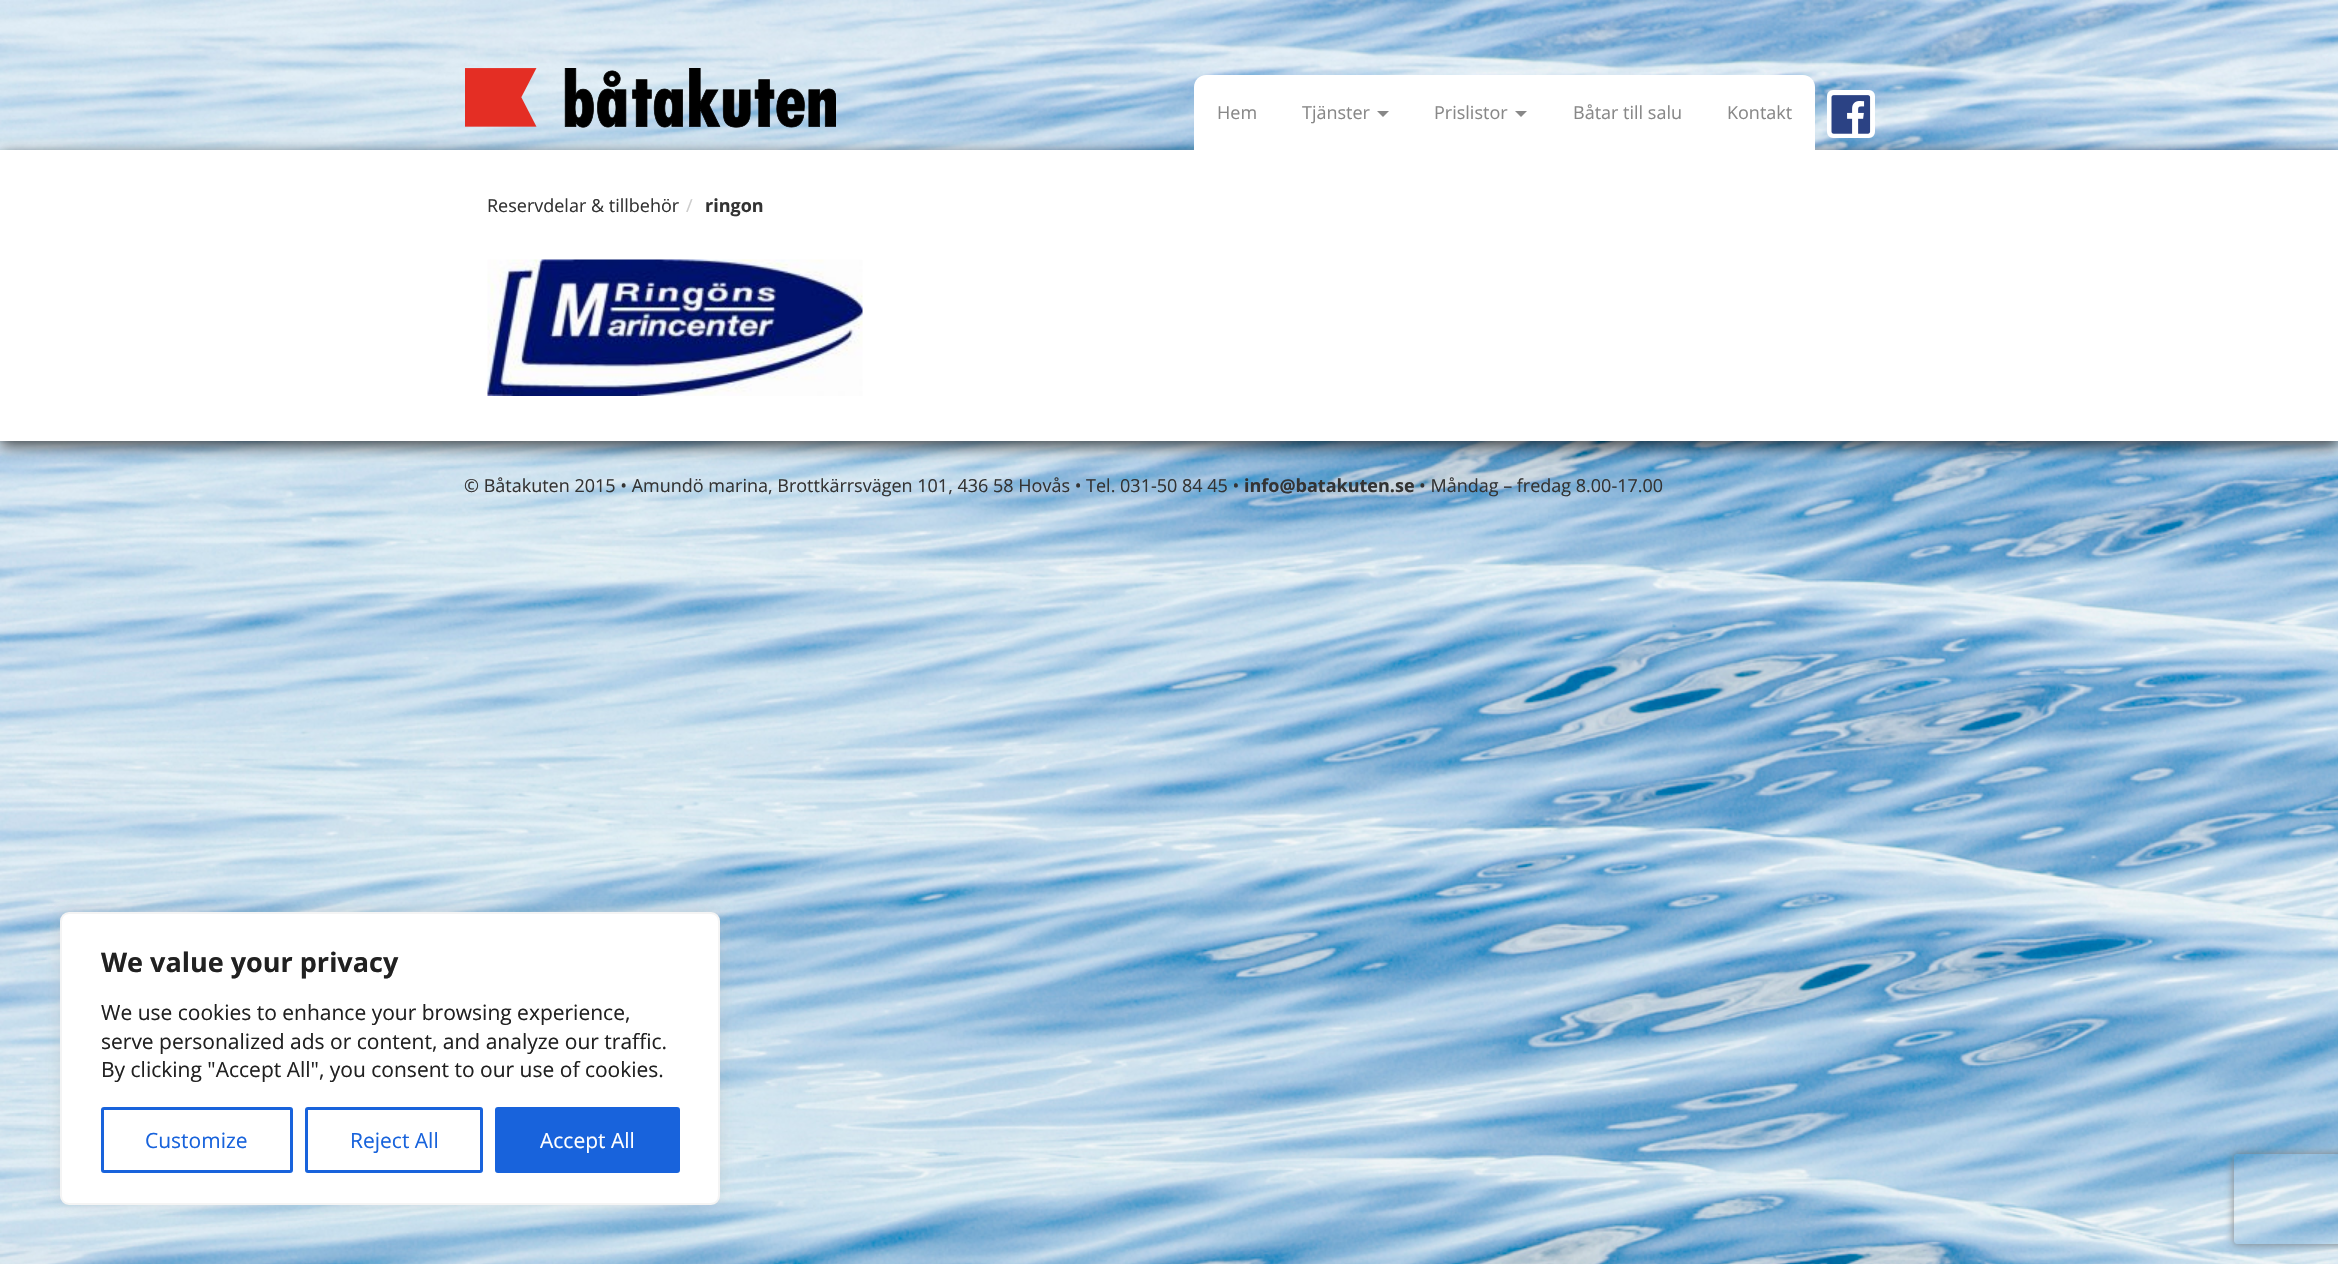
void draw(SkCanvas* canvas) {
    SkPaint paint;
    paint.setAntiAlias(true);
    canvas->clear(0xFFFFFFFF);
    canvas->drawImageRect(SkImages::DeferredFromEncodedData(SkData::MakeFromFileName("img1.png")), SkRect::MakeXYWH(0, 0, 2338, 1264), SkSamplingOptions());
    canvas->drawImageRect(SkImages::DeferredFromEncodedData(SkData::MakeFromFileName("img2.png")), SkRect::MakeXYWH(465, 68, 371, 60), SkSamplingOptions());
    paint.setColor(0xB3000000);
    paint.setMaskFilter(SkMaskFilter::MakeBlur(kNormal_SkBlurStyle, 7.5f));
    canvas->drawRect(SkRect::MakeXYWH(0, 155, 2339, 291), paint);
    paint.setMaskFilter(nullptr);
    paint.setColor(0xFFFFFFFF);
    canvas->drawPath(SkPathBuilder().moveTo(1206, 75).lineTo(1803, 75).cubicTo(1809.5f, 75, 1815, 80.5f, 1815, 87).lineTo(1815, 150).lineTo(1194, 150).lineTo(1194, 87).cubicTo(1194, 80.5f, 1199.5f, 75, 1206, 75).close().detach(), paint);
    SkFont font1(fontMgr->matchFamilyStyle("Open Sans", SkFontStyle::Normal()), 18);
    font1.setSubpixel(true);
    paint.setColor(0xFF888888);
    canvas->drawString("Hem", 1217, 119, font1, paint);
    canvas->drawString("Tjänster", 1302, 119, font1, paint);
    canvas->drawPath(SkPathBuilder().moveTo(1377, 111).lineTo(1389, 111).lineTo(1383, 117).close().detach(), paint);
    canvas->drawString("Prislistor", 1434, 119, font1, paint);
    canvas->drawPath(SkPathBuilder().moveTo(1515, 111).lineTo(1527, 111).lineTo(1521, 117).close().detach(), paint);
    canvas->drawString("Båtar till salu", 1573, 119, font1, paint);
    canvas->drawString("Kontakt", 1727, 119, font1, paint);
    paint.setColor(0xFFFFFFFF);
    canvas->drawRoundRect(SkRect::MakeXYWH(1829.5f, 92.5f, 43, 43), 3.5f, 3.5f, paint);
    paint.setStyle(SkPaint::kStroke_Style);
    paint.setStrokeWidth(5);
    canvas->drawRoundRect(SkRect::MakeXYWH(1829.5f, 92.5f, 43, 43), 3.5f, 3.5f, paint);
    canvas->drawImageRect(SkImages::DeferredFromEncodedData(SkData::MakeFromFileName("img3.png")), SkRect::MakeXYWH(1831, 95, 40, 39), SkSamplingOptions());
    paint.setStyle(SkPaint::kFill_Style);
    canvas->drawRect(SkRect::MakeXYWH(0, 150, 2338, 291), paint);
    paint.setColor(0xFF333333);
    canvas->drawString("Reservdelar & tillbehör", 487, 212, font1, paint);
    paint.setColor(0xFFCCCCCC);
    canvas->drawString("/", 686, 212, font1, paint);
    SkFont font2(fontMgr->matchFamilyStyle("Open Sans", SkFontStyle::Bold()), 18);
    font2.setSubpixel(true);
    paint.setColor(0xFF333333);
    canvas->drawString("ringon", 705, 212, font2, paint);
    canvas->drawImageRect(SkImages::DeferredFromEncodedData(SkData::MakeFromFileName("img4.png")), SkRect::MakeXYWH(487, 259, 376, 137), SkSamplingOptions());
    canvas->drawString("© Båtakuten 2015 • Amundö marina, Brottkärrsvägen 101, 436 58 Hovås • Tel. 031-50 84 45 •", 464, 492, font1, paint);
    canvas->drawString("info@batakuten.se", 1244, 492, font2, paint);
    canvas->drawString("• Måndag – fredag 8.00-17.00", 1419, 492, font1, paint);
    paint.setColor(0x4DACABAB);
    paint.setMaskFilter(SkMaskFilter::MakeBlur(kNormal_SkBlurStyle, 7.5f));
    canvas->drawRoundRect(SkRect::MakeXYWH(60, 911, 660, 292), 9, 9, paint);
    paint.setMaskFilter(nullptr);
    paint.setColor(0xFFFFFFFF);
    canvas->drawRoundRect(SkRect::MakeXYWH(61, 913, 658, 291), 8, 8, paint);
    paint.setStyle(SkPaint::kStroke_Style);
    paint.setStrokeWidth(2);
    paint.setColor(0xFFF4F4F4);
    canvas->drawRoundRect(SkRect::MakeXYWH(61, 913, 658, 291), 8, 8, paint);
    SkFont font3(fontMgr->matchFamilyStyle("Open Sans", SkFontStyle::Bold()), 27);
    font3.setSubpixel(true);
    paint.setStyle(SkPaint::kFill_Style);
    paint.setColor(0xFF212121);
    canvas->drawString("We value your privacy", 101, 972, font3, paint);
    SkFont font4(fontMgr->matchFamilyStyle("Open Sans", SkFontStyle::Normal()), 21);
    font4.setSubpixel(true);
    canvas->drawString("We use cookies to enhance your browsing experience,", 101, 1020, font4, paint);
    canvas->drawString("serve personalized ads or content, and analyze our traffic.", 101, 1049, font4, paint);
    canvas->drawString("By clicking \"Accept All\", you consent to our use of cookies.", 101, 1077, font4, paint);
    paint.setStyle(SkPaint::kStroke_Style);
    paint.setStrokeWidth(3);
    paint.setColor(0xFF1863DC);
    canvas->drawRoundRect(SkRect::MakeXYWH(102.5f, 1108.5f, 189, 63), 1.5f, 1.5f, paint);
    paint.setStyle(SkPaint::kFill_Style);
    canvas->drawString("Customize", 145, 1148, font4, paint);
    paint.setStyle(SkPaint::kStroke_Style);
    canvas->drawRoundRect(SkRect::MakeXYWH(306.5f, 1108.5f, 175, 63), 1.5f, 1.5f, paint);
    paint.setStyle(SkPaint::kFill_Style);
    canvas->drawString("Reject All", 350, 1148, font4, paint);
    canvas->drawRoundRect(SkRect::MakeXYWH(496.5f, 1108.5f, 182, 63), 1.5f, 1.5f, paint);
    paint.setStyle(SkPaint::kStroke_Style);
    canvas->drawRoundRect(SkRect::MakeXYWH(496.5f, 1108.5f, 182, 63), 1.5f, 1.5f, paint);
    paint.setStyle(SkPaint::kFill_Style);
    paint.setColor(0xFFFFFFFF);
    canvas->drawString("Accept All", 540, 1148, font4, paint);
    canvas->save();
    canvas->clipPath(SkPathBuilder(SkPathFillType::kEvenOdd).moveTo(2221, 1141).lineTo(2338, 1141).lineTo(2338, 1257).lineTo(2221, 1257).close().moveTo(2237, 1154).lineTo(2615, 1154).cubicTo(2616.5f, 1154, 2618, 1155.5f, 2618, 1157).lineTo(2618, 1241).cubicTo(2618, 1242.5f, 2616.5f, 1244, 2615, 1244).lineTo(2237, 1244).cubicTo(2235.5f, 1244, 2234, 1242.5f, 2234, 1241).lineTo(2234, 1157).cubicTo(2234, 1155.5f, 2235.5f, 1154, 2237, 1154).close().detach(), true);
    paint.setColor(0xFF808080);
    paint.setMaskFilter(SkMaskFilter::MakeBlur(kNormal_SkBlurStyle, 4));
    canvas->drawRoundRect(SkRect::MakeXYWH(2234, 1154, 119, 90), 3, 3, paint);
    paint.setMaskFilter(nullptr);
    canvas->restore();
}
